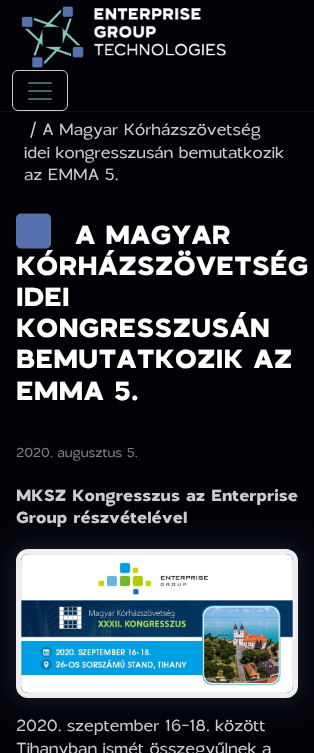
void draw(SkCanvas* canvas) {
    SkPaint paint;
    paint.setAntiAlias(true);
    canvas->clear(0xFF020207);
    paint.setColor(0x0DFFFFFF);
    canvas->drawRect(SkRect::MakeXYWH(0, 111, 314, 1), paint);
    canvas->drawImageRect(SkImages::DeferredFromEncodedData(SkData::MakeFromFileName("img1.png")), SkRect::MakeXYWH(21, 6, 205, 62), SkSamplingOptions());
    paint.setStyle(SkPaint::kStroke_Style);
    paint.setStrokeWidth(1);
    paint.setColor(0xFFCCCCCC);
    canvas->drawRoundRect(SkRect::MakeXYWH(12.5f, 70.5f, 55, 40), 5.5f, 5.5f, paint);
    canvas->drawImageRect(SkImages::DeferredFromEncodedData(SkData::MakeFromFileName("img2.png")), SkRect::MakeXYWH(28, 82, 24, 18), SkSamplingOptions());
    SkFont font1(fontMgr->matchFamilyStyle("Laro", SkFontStyle::Normal()), 16);
    font1.setSubpixel(true);
    paint.setStyle(SkPaint::kFill_Style);
    canvas->drawString("/ A Magyar Kórházszövetség", 29, 135, font1, paint);
    canvas->drawString("idei kongresszusán bemutatkozik", 24, 158, font1, paint);
    canvas->drawString("az EMMA 5.", 24, 180, font1, paint);
    canvas->drawImageRect(SkImages::DeferredFromEncodedData(SkData::MakeFromFileName("img3.png")), SkRect::MakeXYWH(16, 213, 35, 36), SkSamplingOptions());
    SkFont font2(fontMgr->matchFamilyStyle("Laro", SkFontStyle::Bold()), 26);
    font2.setSubpixel(true);
    paint.setColor(0xFFFFFFFF);
    canvas->drawString("A MAGYAR", 75, 244, font2, paint);
    canvas->drawString("KÓRHÁZSZÖVETSÉG", 16, 275, font2, paint);
    canvas->drawString("IDEI", 16, 306, font2, paint);
    canvas->drawString("KONGRESSZUSÁN", 16, 337, font2, paint);
    canvas->drawString("BEMUTATKOZIK AZ", 16, 368, font2, paint);
    canvas->drawString("EMMA 5.", 16, 400, font2, paint);
    SkFont font3(fontMgr->matchFamilyStyle("Laro", SkFontStyle::Normal()), 13);
    font3.setSubpixel(true);
    paint.setColor(0xFF7F7F7F);
    canvas->drawString("2020. augusztus 5.", 16, 457, font3, paint);
    SkFont font4(fontMgr->matchFamilyStyle("Laro", SkFontStyle::Bold()), 16);
    font4.setSubpixel(true);
    paint.setColor(0xFFCCCCCC);
    canvas->drawString("MKSZ Kongresszus az Enterprise", 16, 501, font4, paint);
    canvas->drawString("Group részvételével", 16, 523, font4, paint);
    paint.setColor(0x335671AD);
    paint.setMaskFilter(SkMaskFilter::MakeBlur(kNormal_SkBlurStyle, 10));
    canvas->drawRoundRect(SkRect::MakeXYWH(11, 544, 292, 159), 17, 17, paint);
    paint.setMaskFilter(nullptr);
    paint.setStyle(SkPaint::kStroke_Style);
    paint.setStrokeWidth(5);
    paint.setColor(0xFFEFEFEF);
    canvas->drawRoundRect(SkRect::MakeXYWH(18.5f, 551.5f, 277, 144), 9.5f, 9.5f, paint);
    canvas->drawImageRect(SkImages::DeferredFromEncodedData(SkData::MakeFromFileName("img4.png")), SkRect::MakeXYWH(21, 554, 272, 139), SkSamplingOptions());
    paint.setStyle(SkPaint::kFill_Style);
    paint.setColor(0xFFCCCCCC);
    canvas->drawString("2020. szeptember 16-18. között", 16, 731, font1, paint);
    canvas->drawString("Tihanyban ismét összegyűlnek a", 16, 754, font1, paint);
}
